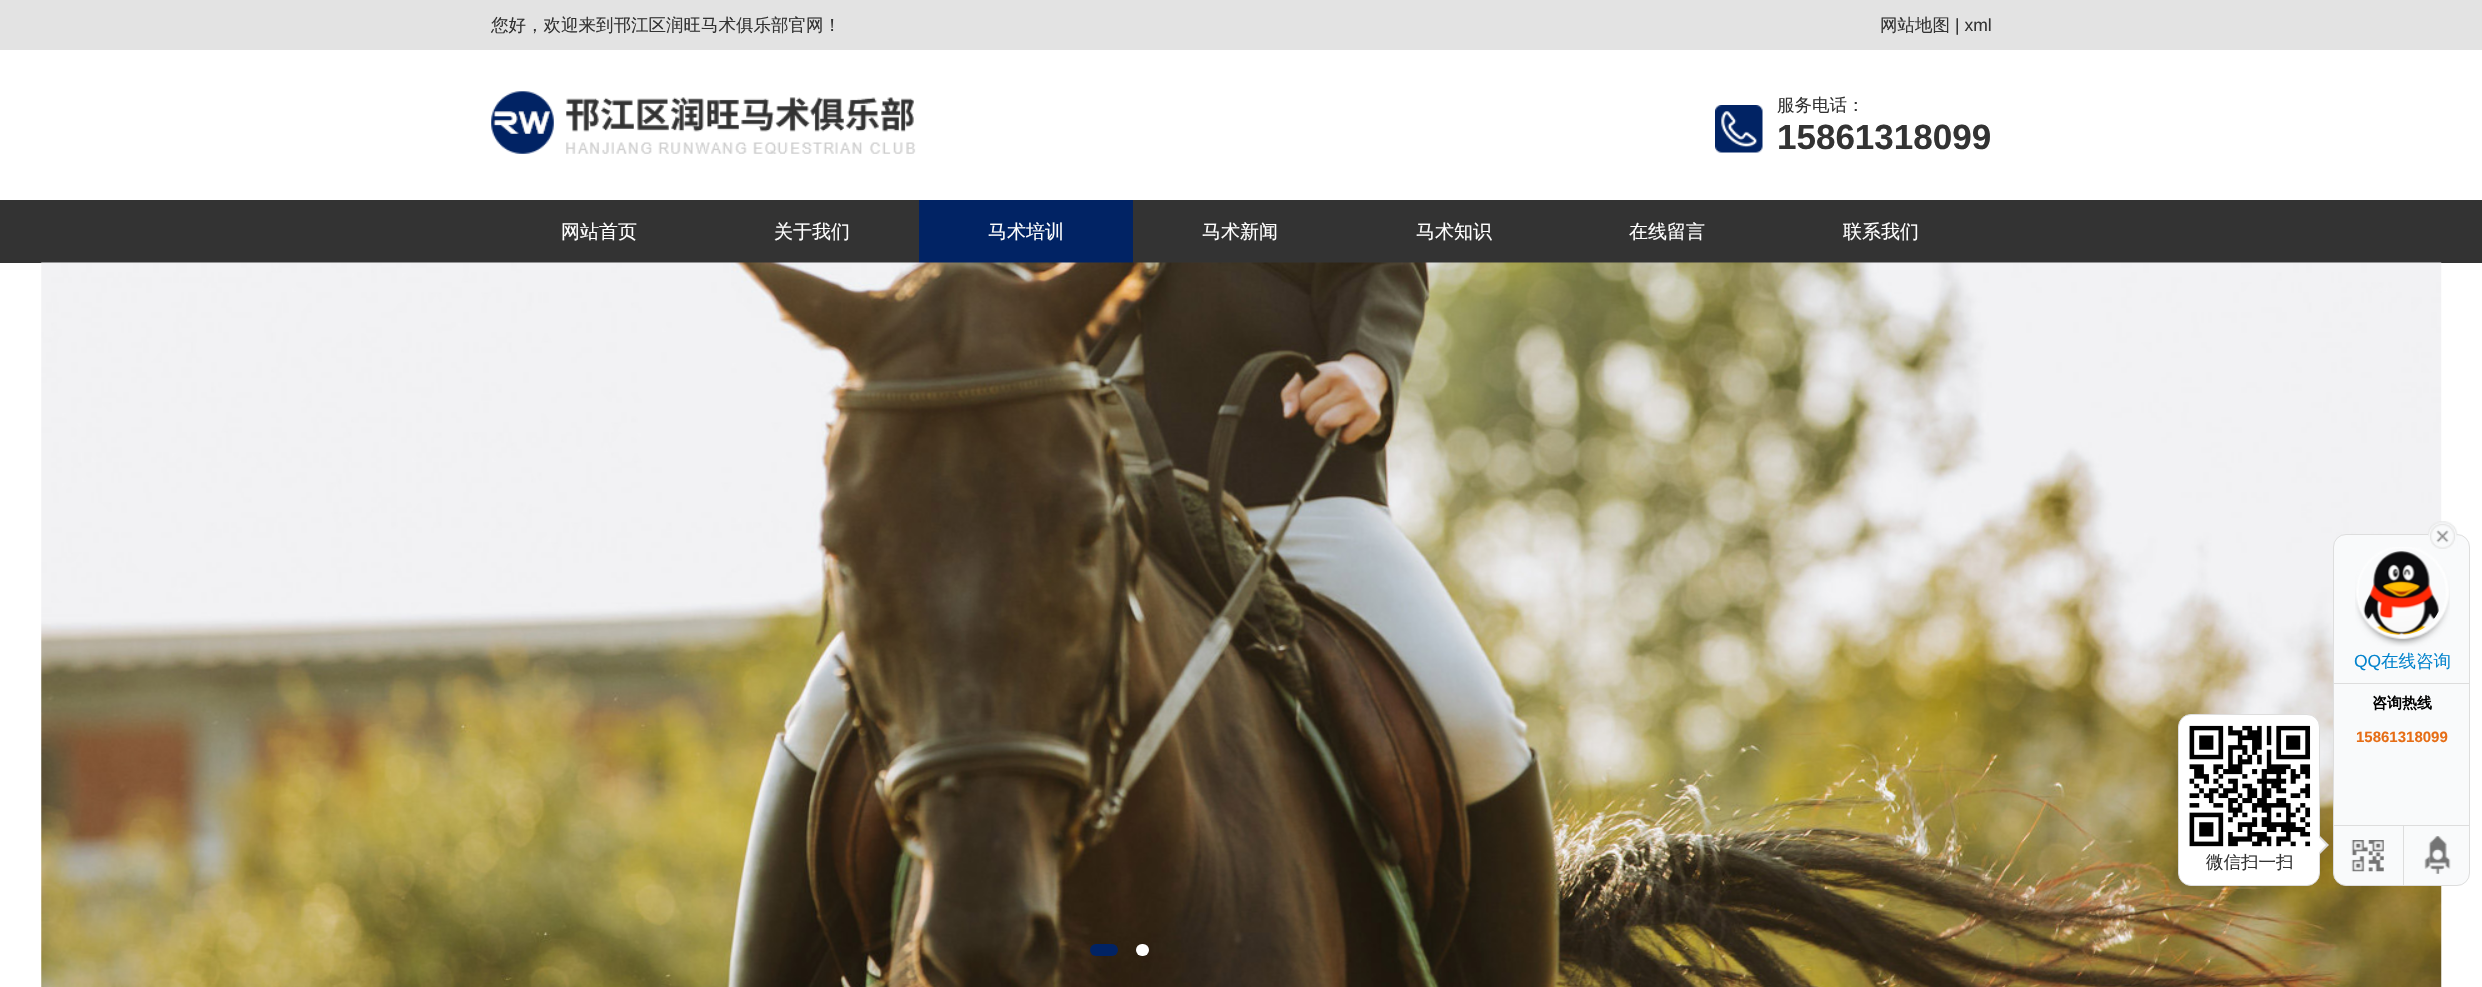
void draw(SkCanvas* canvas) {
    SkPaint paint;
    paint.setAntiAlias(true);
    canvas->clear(0xFFFFFFFF);
    paint.setColor(0xFFE3E3E3);
    canvas->drawRect(SkRect::MakeXYWH(0, 0, 2482, 50), paint);
    SkFont font1(fontMgr->matchFamilyStyle("WenQuanYi Zen Hei", SkFontStyle(500, SkFontStyle::kNormal_Width, SkFontStyle::kUpright_Slant)), 17.5f);
    font1.setSubpixel(true);
    paint.setColor(0xFF333333);
    canvas->drawString("您好，欢迎来到邗江区润旺马术俱乐部官网！", 491, 31, font1, paint);
    canvas->drawString("网站地图", 1880, 31, font1, paint);
    SkFont font2(fontMgr->matchFamilyStyle("Liberation Sans", SkFontStyle::Normal()), 17.5f);
    font2.setSubpixel(true);
    canvas->drawString("| xml", 1955, 31, font2, paint);
    canvas->drawImageRect(SkImages::DeferredFromEncodedData(SkData::MakeFromFileName("img1.png")), SkRect::MakeXYWH(491, 91, 425, 63), SkSamplingOptions());
    canvas->drawImageRect(SkImages::DeferredFromEncodedData(SkData::MakeFromFileName("img2.png")), SkRect::MakeXYWH(1715, 105, 48, 48), SkSamplingOptions());
    canvas->drawString("服务电话：", 1777, 111, font1, paint);
    SkFont font3(fontMgr->matchFamilyStyle("Liberation Sans", SkFontStyle::Bold()), 35);
    font3.setSubpixel(true);
    canvas->drawString("15861318099", 1777, 149, font3, paint);
    canvas->drawRect(SkRect::MakeXYWH(0, 200, 2482, 63), paint);
    SkFont font4(fontMgr->matchFamilyStyle("WenQuanYi Zen Hei", SkFontStyle(500, SkFontStyle::kNormal_Width, SkFontStyle::kUpright_Slant)), 19);
    font4.setSubpixel(true);
    paint.setColor(0xFFFFFFFF);
    canvas->drawString("网站首页", 561, 238, font4, paint);
    canvas->drawString("关于我们", 774, 238, font4, paint);
    paint.setColor(0xFF012364);
    canvas->drawRect(SkRect::MakeXYWH(919, 200, 214, 63), paint);
    paint.setColor(0xFFFFFFFF);
    canvas->drawString("马术培训", 988, 238, font4, paint);
    canvas->drawString("马术新闻", 1202, 238, font4, paint);
    canvas->drawString("马术知识", 1416, 238, font4, paint);
    canvas->drawString("在线留言", 1629, 238, font4, paint);
    canvas->drawString("联系我们", 1843, 238, font4, paint);
    canvas->drawImageRect(SkImages::DeferredFromEncodedData(SkData::MakeFromFileName("img3.png")), SkRect::MakeXYWH(41, 262, 2401, 725), SkSamplingOptions());
    paint.setColor(0xFF012364);
    canvas->drawRoundRect(SkRect::MakeXYWH(1090, 944, 28, 12), 6, 6, paint);
    paint.setColor(0xFFFFFFFF);
    canvas->drawRoundRect(SkRect::MakeXYWH(1136, 944, 13, 12), 6, 6, paint);
    paint.setColor(0xFFF9FAFB);
    canvas->drawRoundRect(SkRect::MakeXYWH(2333.5f, 534.5f, 136, 351), 12.5f, 12.5f, paint);
    paint.setStyle(SkPaint::kStroke_Style);
    paint.setStrokeWidth(1);
    paint.setColor(0xFFDDDDDD);
    canvas->drawRoundRect(SkRect::MakeXYWH(2333.5f, 534.5f, 136, 351), 12.5f, 12.5f, paint);
    canvas->drawImageRect(SkImages::DeferredFromEncodedData(SkData::MakeFromFileName("img6.png")), SkRect::MakeXYWH(2363, 551, 76, 84), SkSamplingOptions());
    canvas->drawImageRect(SkImages::DeferredFromEncodedData(SkData::MakeFromFileName("img5.png")), SkRect::MakeXYWH(2355, 547, 95, 100), SkSamplingOptions());
    canvas->drawImageRect(SkImages::DeferredFromEncodedData(SkData::MakeFromFileName("img4.png")), SkRect::MakeXYWH(2428, 521, 30, 28), SkSamplingOptions());
    paint.setStyle(SkPaint::kFill_Style);
    canvas->drawRect(SkRect::MakeXYWH(2334, 683, 136, 1), paint);
    paint.setColor(0xFF0484CD);
    canvas->drawString("QQ", 2354, 667, font2, paint);
    canvas->drawString("在线咨询", 2381, 667, font1, paint);
    paint.setColor(0xFFDDDDDD);
    canvas->drawRect(SkRect::MakeXYWH(2334, 825, 136, 1), paint);
    SkFont font5(fontMgr->matchFamilyStyle("WenQuanYi Zen Hei", SkFontStyle::Bold()), 15);
    font5.setSubpixel(true);
    paint.setColor(0xFF000000);
    canvas->drawString("咨询热线", 2372, 708, font5, paint);
    SkFont font6(fontMgr->matchFamilyStyle("Liberation Sans", SkFontStyle::Bold()), 15);
    font6.setSubpixel(true);
    paint.setColor(0xFFE66D15);
    canvas->drawString("15861318099", 2356, 742, font6, paint);
    canvas->drawImageRect(SkImages::DeferredFromEncodedData(SkData::MakeFromFileName("img7.png")), SkRect::MakeXYWH(2351, 840, 33, 32), SkSamplingOptions());
    paint.setColor(0xFFDDDDDD);
    canvas->drawRect(SkRect::MakeXYWH(2403, 826, 1, 59), paint);
    paint.setColor(0xFFFFFFFF);
    canvas->drawRoundRect(SkRect::MakeXYWH(2178.5f, 714.5f, 141, 171), 12.5f, 12.5f, paint);
    paint.setStyle(SkPaint::kStroke_Style);
    paint.setColor(0xFFDDDDDD);
    canvas->drawRoundRect(SkRect::MakeXYWH(2178.5f, 714.5f, 141, 171), 12.5f, 12.5f, paint);
    canvas->drawImageRect(SkImages::DeferredFromEncodedData(SkData::MakeFromFileName("img8.png")), SkRect::MakeXYWH(2189, 725, 122, 122), SkSamplingOptions());
    paint.setStyle(SkPaint::kFill_Style);
    canvas->drawPath(SkPathBuilder().moveTo(2319, 855).lineTo(2319, 835).lineTo(2329, 845).close().detach(), paint);
    paint.setColor(0xFFFFFFFF);
    canvas->drawPath(SkPathBuilder().moveTo(2319, 852.5f).lineTo(2319, 837.5f).lineTo(2326, 845).close().detach(), paint);
    paint.setColor(0xFF333333);
    canvas->drawString("微信扫一扫", 2206, 868, font1, paint);
    canvas->drawImageRect(SkImages::DeferredFromEncodedData(SkData::MakeFromFileName("img9.png")), SkRect::MakeXYWH(2424, 836, 27, 38), SkSamplingOptions());
}
